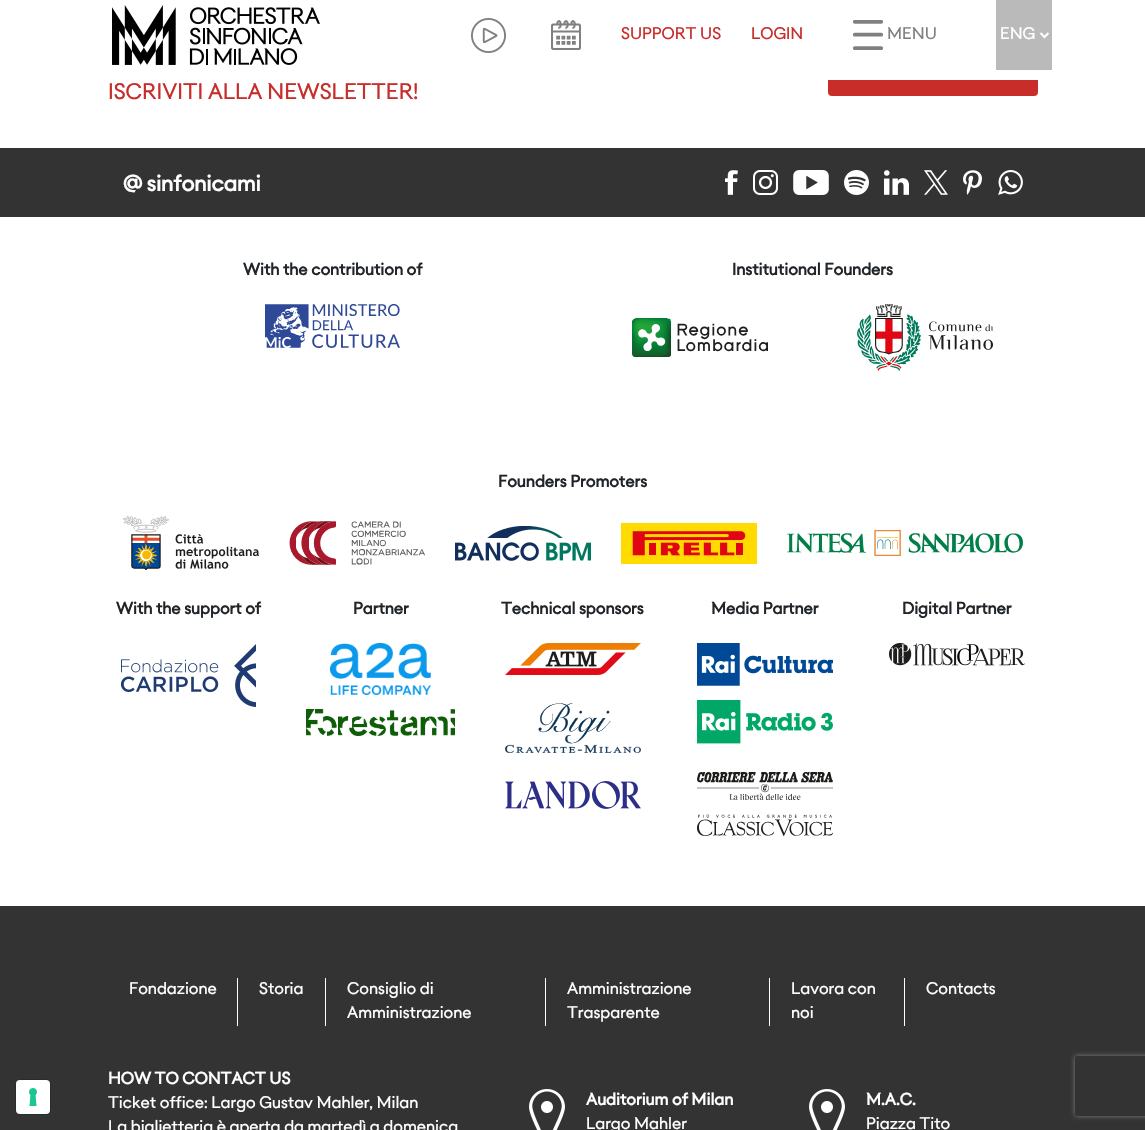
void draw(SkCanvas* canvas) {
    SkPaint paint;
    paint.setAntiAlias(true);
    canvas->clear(0xFFFFFFFF);
    paint.setColor(0xFFC82D2A);
    canvas->drawRoundRect(SkRect::MakeXYWH(828, 62, 210, 34), 4, 4, paint);
    paint.setColor(0xFFFFFFFF);
    canvas->drawRect(SkRect::MakeXYWH(828, 62, 210, 18), paint);
    canvas->drawImageRect(SkImages::DeferredFromEncodedData(SkData::MakeFromFileName("img1.png")), SkRect::MakeXYWH(112, 5, 208, 60), SkSamplingOptions());
    canvas->drawImageRect(SkImages::DeferredFromEncodedData(SkData::MakeFromFileName("img2.png")), SkRect::MakeXYWH(471, 18, 35, 35), SkSamplingOptions());
    canvas->drawImageRect(SkImages::DeferredFromEncodedData(SkData::MakeFromFileName("img3.png")), SkRect::MakeXYWH(551, 20, 30, 30), SkSamplingOptions());
    SkFont font1(fontMgr->matchFamilyStyle("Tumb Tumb", SkFontStyle::Normal()), 15);
    font1.setSubpixel(true);
    paint.setColor(0xFFC82D2A);
    canvas->drawString("SUPPORT US", 621, 39, font1, paint);
    canvas->drawString("LOGIN", 751, 39, font1, paint);
    canvas->drawImageRect(SkImages::DeferredFromEncodedData(SkData::MakeFromFileName("img4.png")), SkRect::MakeXYWH(853, 20, 30, 30), SkSamplingOptions());
    paint.setColor(0xFF808080);
    canvas->drawString("MENU", 887, 39, font1, paint);
    paint.setColor(0xFFBABABA);
    canvas->drawRect(SkRect::MakeXYWH(996, 0, 56, 70), paint);
    paint.setStyle(SkPaint::kStroke_Style);
    paint.setStrokeWidth(2);
    paint.setColor(0xFFFFFFFF);
    canvas->drawPath(SkPathBuilder().moveTo(1040.5f, 33).lineTo(1044.5f, 37).lineTo(1048.5f, 33).detach(), paint);
    paint.setStyle(SkPaint::kFill_Style);
    canvas->drawString("ENG", 1000, 39, font1, paint);
    SkFont font2(fontMgr->matchFamilyStyle("Tumb Tumb", SkFontStyle::Normal()), 20);
    font2.setSubpixel(true);
    paint.setColor(0xFFC82D2A);
    canvas->drawString("ISCRIVITI ALLA NEWSLETTER!", 108, 99, font2, paint);
    paint.setColor(0xFF333333);
    canvas->drawRect(SkRect::MakeXYWH(0, 148, 1145, 69), paint);
    SkFont font3(fontMgr->matchFamilyStyle("Tumb Tumb", SkFontStyle::Bold()), 20);
    font3.setSubpixel(true);
    paint.setColor(0xFFFFFFFF);
    canvas->drawString("@ sinfonicami", 123, 191, font3, paint);
    canvas->drawImageRect(SkImages::DeferredFromEncodedData(SkData::MakeFromFileName("img5.png")), SkRect::MakeXYWH(725, 170, 13, 25), SkSamplingOptions());
    canvas->drawImageRect(SkImages::DeferredFromEncodedData(SkData::MakeFromFileName("img6.png")), SkRect::MakeXYWH(753, 170, 25, 25), SkSamplingOptions());
    canvas->drawImageRect(SkImages::DeferredFromEncodedData(SkData::MakeFromFileName("img7.png")), SkRect::MakeXYWH(793, 170, 36, 25), SkSamplingOptions());
    canvas->drawImageRect(SkImages::DeferredFromEncodedData(SkData::MakeFromFileName("img8.png")), SkRect::MakeXYWH(844, 170, 25, 25), SkSamplingOptions());
    canvas->drawImageRect(SkImages::DeferredFromEncodedData(SkData::MakeFromFileName("img9.png")), SkRect::MakeXYWH(884, 170, 25, 25), SkSamplingOptions());
    canvas->drawImageRect(SkImages::DeferredFromEncodedData(SkData::MakeFromFileName("img10.png")), SkRect::MakeXYWH(924, 170, 24, 25), SkSamplingOptions());
    canvas->drawImageRect(SkImages::DeferredFromEncodedData(SkData::MakeFromFileName("img11.png")), SkRect::MakeXYWH(963, 170, 19, 25), SkSamplingOptions());
    canvas->drawImageRect(SkImages::DeferredFromEncodedData(SkData::MakeFromFileName("img12.png")), SkRect::MakeXYWH(998, 170, 25, 25), SkSamplingOptions());
    SkFont font4(fontMgr->matchFamilyStyle("Tumb Tumb", SkFontStyle::Bold()), 15);
    font4.setSubpixel(true);
    paint.setColor(0xFF212529);
    canvas->drawString("With the contribution of", 243, 275, font4, paint);
    canvas->drawImageRect(SkImages::DeferredFromEncodedData(SkData::MakeFromFileName("img13.png")), SkRect::MakeXYWH(265, 304, 135, 44), SkSamplingOptions());
    canvas->drawString("Institutional Founders", 732, 275, font4, paint);
    canvas->drawImageRect(SkImages::DeferredFromEncodedData(SkData::MakeFromFileName("img14.png")), SkRect::MakeXYWH(632, 318, 136, 39), SkSamplingOptions());
    canvas->drawImageRect(SkImages::DeferredFromEncodedData(SkData::MakeFromFileName("img15.png")), SkRect::MakeXYWH(857, 304, 136, 67), SkSamplingOptions());
    canvas->drawString("Founders Promoters", 498, 487, font4, paint);
    canvas->drawImageRect(SkImages::DeferredFromEncodedData(SkData::MakeFromFileName("img16.png")), SkRect::MakeXYWH(123, 516, 136, 54), SkSamplingOptions());
    canvas->drawImageRect(SkImages::DeferredFromEncodedData(SkData::MakeFromFileName("img17.png")), SkRect::MakeXYWH(289, 521, 136, 44), SkSamplingOptions());
    canvas->drawImageRect(SkImages::DeferredFromEncodedData(SkData::MakeFromFileName("img18.png")), SkRect::MakeXYWH(455, 526, 136, 35), SkSamplingOptions());
    canvas->drawImageRect(SkImages::DeferredFromEncodedData(SkData::MakeFromFileName("img19.png")), SkRect::MakeXYWH(621, 523, 136, 41), SkSamplingOptions());
    canvas->drawImageRect(SkImages::DeferredFromEncodedData(SkData::MakeFromFileName("img20.png")), SkRect::MakeXYWH(787, 530, 236, 26), SkSamplingOptions());
    canvas->drawString("With the support of", 116, 614, font4, paint);
    canvas->drawImageRect(SkImages::DeferredFromEncodedData(SkData::MakeFromFileName("img21.png")), SkRect::MakeXYWH(121, 644, 135, 63), SkSamplingOptions());
    canvas->drawString("Partner", 353, 614, font4, paint);
    canvas->drawImageRect(SkImages::DeferredFromEncodedData(SkData::MakeFromFileName("img22.png")), SkRect::MakeXYWH(330, 643, 101, 52), SkSamplingOptions());
    canvas->drawImageRect(SkImages::DeferredFromEncodedData(SkData::MakeFromFileName("img23.png")), SkRect::MakeXYWH(306, 709, 149, 27), SkSamplingOptions());
    canvas->drawString("Technical sponsors", 501, 614, font4, paint);
    canvas->drawImageRect(SkImages::DeferredFromEncodedData(SkData::MakeFromFileName("img24.png")), SkRect::MakeXYWH(505, 643, 136, 32), SkSamplingOptions());
    canvas->drawImageRect(SkImages::DeferredFromEncodedData(SkData::MakeFromFileName("img25.png")), SkRect::MakeXYWH(505, 703, 136, 50), SkSamplingOptions());
    canvas->drawImageRect(SkImages::DeferredFromEncodedData(SkData::MakeFromFileName("img26.png")), SkRect::MakeXYWH(505, 781, 136, 28), SkSamplingOptions());
    canvas->drawString("Media Partner", 711, 614, font4, paint);
    canvas->drawImageRect(SkImages::DeferredFromEncodedData(SkData::MakeFromFileName("img27.png")), SkRect::MakeXYWH(697, 643, 136, 43), SkSamplingOptions());
    canvas->drawImageRect(SkImages::DeferredFromEncodedData(SkData::MakeFromFileName("img28.png")), SkRect::MakeXYWH(697, 700, 136, 44), SkSamplingOptions());
    canvas->drawImageRect(SkImages::DeferredFromEncodedData(SkData::MakeFromFileName("img29.png")), SkRect::MakeXYWH(697, 772, 136, 28), SkSamplingOptions());
    canvas->drawImageRect(SkImages::DeferredFromEncodedData(SkData::MakeFromFileName("img30.png")), SkRect::MakeXYWH(697, 814, 136, 22), SkSamplingOptions());
    canvas->drawString("Digital Partner", 902, 614, font4, paint);
    canvas->drawImageRect(SkImages::DeferredFromEncodedData(SkData::MakeFromFileName("img31.png")), SkRect::MakeXYWH(889, 643, 136, 23), SkSamplingOptions());
    paint.setColor(0xFF333333);
    canvas->drawRect(SkRect::MakeXYWH(0, 906, 1145, 224), paint);
    paint.setStyle(SkPaint::kStroke_Style);
    paint.setStrokeWidth(1);
    paint.setColor(0xFF2B2B2B);
    canvas->drawRoundRect(SkRect::MakeXYWH(15.5f, 1079.5f, 35, 35), 4.5f, 4.5f, paint);
    paint.setStyle(SkPaint::kFill_Style);
    paint.setColor(0xFFFFFFFF);
    canvas->drawRoundRect(SkRect::MakeXYWH(16, 1080, 34, 34), 4, 4, paint);
    canvas->drawImageRect(SkImages::DeferredFromEncodedData(SkData::MakeFromFileName("img32.png")), SkRect::MakeXYWH(29, 1088, 8, 18), SkSamplingOptions());
    canvas->drawRect(SkRect::MakeXYWH(237, 978, 1, 48), paint);
    canvas->drawString("Fondazione", 129, 994, font1, paint);
    canvas->drawRect(SkRect::MakeXYWH(325, 978, 1, 48), paint);
    canvas->drawString("Storia", 259, 994, font1, paint);
    canvas->drawRect(SkRect::MakeXYWH(545, 978, 1, 48), paint);
    canvas->drawString("Consiglio di", 347, 994, font1, paint);
    canvas->drawString("Amministrazione", 347, 1018, font1, paint);
    canvas->drawRect(SkRect::MakeXYWH(769, 978, 1, 48), paint);
    canvas->drawString("Amministrazione", 567, 994, font1, paint);
    canvas->drawString("Trasparente", 567, 1018, font1, paint);
    canvas->drawRect(SkRect::MakeXYWH(904, 978, 1, 48), paint);
    canvas->drawString("Lavora con", 791, 994, font1, paint);
    canvas->drawString("noi", 791, 1018, font1, paint);
    canvas->drawString("Contacts", 926, 994, font1, paint);
    canvas->drawString("HOW TO CONTACT US", 108, 1084, font4, paint);
    canvas->drawString("Ticket office: Largo Gustav Mahler, Milan", 108, 1108, font1, paint);
    canvas->drawString("La biglietteria è aperta da martedì a domenica", 108, 1132, font1, paint);
    canvas->drawImageRect(SkImages::DeferredFromEncodedData(SkData::MakeFromFileName("img33.png")), SkRect::MakeXYWH(529, 1089, 36, 41), SkSamplingOptions());
    canvas->drawString("Auditorium of Milan", 586, 1105, font4, paint);
    canvas->drawString("Largo Mahler", 586, 1129, font1, paint);
    canvas->drawImageRect(SkImages::DeferredFromEncodedData(SkData::MakeFromFileName("img33.png")), SkRect::MakeXYWH(809, 1089, 36, 41), SkSamplingOptions());
    canvas->drawString("M.A.C.", 866, 1105, font4, paint);
    canvas->drawString("Piazza Tito", 866, 1129, font1, paint);
    canvas->save();
    canvas->clipPath(SkPathBuilder(SkPathFillType::kEvenOdd).moveTo(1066, 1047).lineTo(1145, 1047).lineTo(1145, 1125).lineTo(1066, 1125).close().moveTo(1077, 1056).lineTo(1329, 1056).cubicTo(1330, 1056, 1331, 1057, 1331, 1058).lineTo(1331, 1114).cubicTo(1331, 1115, 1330, 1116, 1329, 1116).lineTo(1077, 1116).cubicTo(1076, 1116, 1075, 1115, 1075, 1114).lineTo(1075, 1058).cubicTo(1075, 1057, 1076, 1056, 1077, 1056).close().detach(), true);
    paint.setColor(0xFF808080);
    paint.setMaskFilter(SkMaskFilter::MakeBlur(kNormal_SkBlurStyle, 2.5f));
    canvas->drawRoundRect(SkRect::MakeXYWH(1075, 1056, 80, 60), 2, 2, paint);
    paint.setMaskFilter(nullptr);
    canvas->restore();
}
